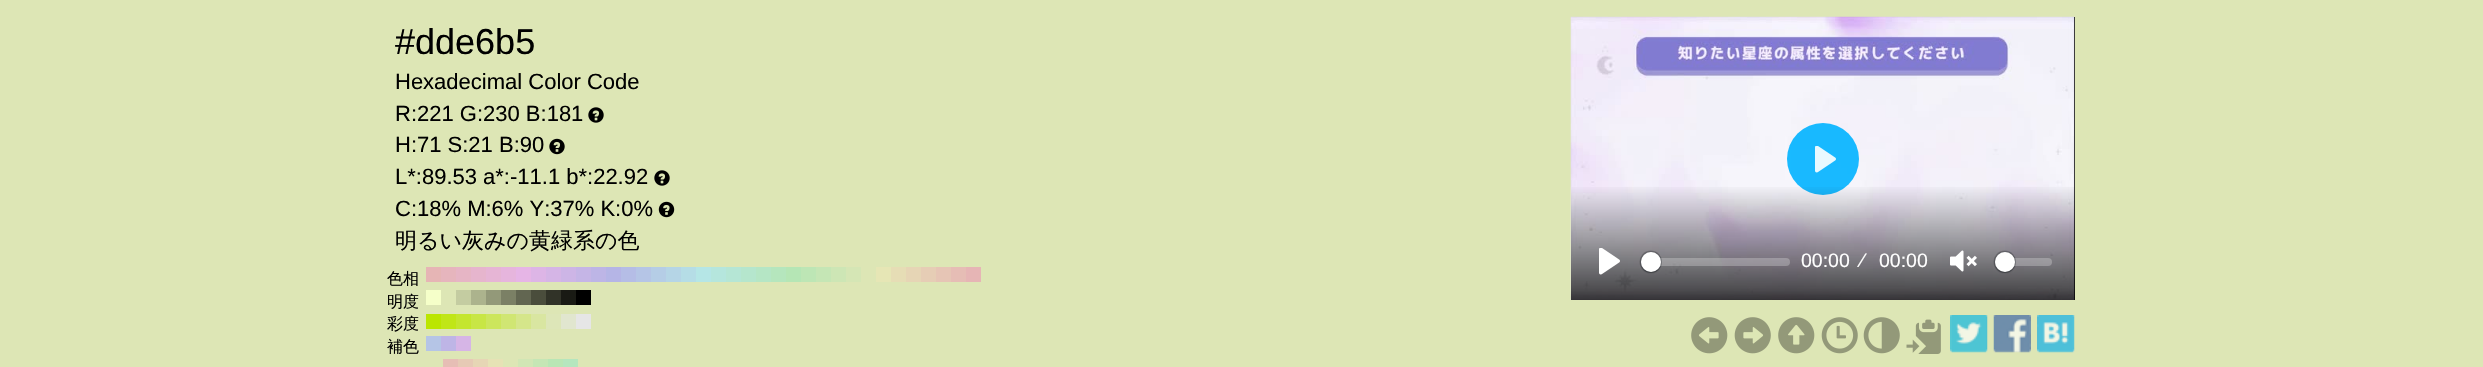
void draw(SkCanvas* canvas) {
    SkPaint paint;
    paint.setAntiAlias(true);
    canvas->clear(0xFFDDE6B5);
    SkFont font1(fontMgr->matchFamilyStyle("Liberation Sans", SkFontStyle::Normal()), 36);
    font1.setSubpixel(true);
    paint.setColor(0xFF000000);
    canvas->drawString("#dde6b5", 395, 54, font1, paint);
    SkFont font2(fontMgr->matchFamilyStyle("Liberation Sans", SkFontStyle::Normal()), 22);
    font2.setSubpixel(true);
    canvas->drawString("Hexadecimal Color Code", 395, 89, font2, paint);
    canvas->drawString("R:221 G:230 B:181", 395, 121, font2, paint);
    canvas->drawImageRect(SkImages::DeferredFromEncodedData(SkData::MakeFromFileName("img1.png")), SkRect::MakeXYWH(588, 107, 16, 16), SkSamplingOptions());
    canvas->drawString("H:71 S:21 B:90", 395, 152, font2, paint);
    canvas->drawImageRect(SkImages::DeferredFromEncodedData(SkData::MakeFromFileName("img2.png")), SkRect::MakeXYWH(549, 138, 16, 17), SkSamplingOptions());
    canvas->drawString("L*:89.53 a*:-11.1 b*:22.92", 395, 184, font2, paint);
    canvas->drawImageRect(SkImages::DeferredFromEncodedData(SkData::MakeFromFileName("img1.png")), SkRect::MakeXYWH(654, 170, 16, 16), SkSamplingOptions());
    canvas->drawString("C:18% M:6% Y:37% K:0%", 395, 216, font2, paint);
    canvas->drawImageRect(SkImages::DeferredFromEncodedData(SkData::MakeFromFileName("img3.png")), SkRect::MakeXYWH(658, 201, 17, 17), SkSamplingOptions());
    SkFont font3(fontMgr->matchFamilyStyle("WenQuanYi Zen Hei", SkFontStyle(500, SkFontStyle::kNormal_Width, SkFontStyle::kUpright_Slant)), 22);
    font3.setSubpixel(true);
    canvas->drawString("明るい灰みの黄緑系の色", 395, 248, font3, paint);
    SkFont font4(fontMgr->matchFamilyStyle("WenQuanYi Zen Hei", SkFontStyle(500, SkFontStyle::kNormal_Width, SkFontStyle::kUpright_Slant)), 16);
    font4.setSubpixel(true);
    canvas->drawString("色相", 387, 284, font4, paint);
    paint.setColor(0xFFE6B5B5);
    canvas->drawRect(SkRect::MakeXYWH(426, 267, 15, 15), paint);
    paint.setColor(0xFFE6B5BD);
    canvas->drawRect(SkRect::MakeXYWH(441, 267, 15, 15), paint);
    paint.setColor(0xFFE6B5C5);
    canvas->drawRect(SkRect::MakeXYWH(456, 267, 15, 15), paint);
    paint.setColor(0xFFE6B5CD);
    canvas->drawRect(SkRect::MakeXYWH(471, 267, 15, 15), paint);
    paint.setColor(0xFFE6B5D5);
    canvas->drawRect(SkRect::MakeXYWH(486, 267, 15, 15), paint);
    paint.setColor(0xFFE6B5DD);
    canvas->drawRect(SkRect::MakeXYWH(501, 267, 15, 15), paint);
    paint.setColor(0xFFE6B5E6);
    canvas->drawRect(SkRect::MakeXYWH(516, 267, 15, 15), paint);
    paint.setColor(0xFFDDB5E6);
    canvas->drawRect(SkRect::MakeXYWH(531, 267, 15, 15), paint);
    paint.setColor(0xFFD5B5E6);
    canvas->drawRect(SkRect::MakeXYWH(546, 267, 15, 15), paint);
    paint.setColor(0xFFCDB5E6);
    canvas->drawRect(SkRect::MakeXYWH(561, 267, 15, 15), paint);
    paint.setColor(0xFFC5B5E6);
    canvas->drawRect(SkRect::MakeXYWH(576, 267, 15, 15), paint);
    paint.setColor(0xFFBDB5E6);
    canvas->drawRect(SkRect::MakeXYWH(591, 267, 15, 15), paint);
    paint.setColor(0xFFB5B5E6);
    canvas->drawRect(SkRect::MakeXYWH(606, 267, 15, 15), paint);
    paint.setColor(0xFFB5BDE6);
    canvas->drawRect(SkRect::MakeXYWH(621, 267, 15, 15), paint);
    paint.setColor(0xFFB5C5E6);
    canvas->drawRect(SkRect::MakeXYWH(636, 267, 15, 15), paint);
    paint.setColor(0xFFB5CDE6);
    canvas->drawRect(SkRect::MakeXYWH(651, 267, 15, 15), paint);
    paint.setColor(0xFFB5D5E6);
    canvas->drawRect(SkRect::MakeXYWH(666, 267, 15, 15), paint);
    paint.setColor(0xFFB5DDE6);
    canvas->drawRect(SkRect::MakeXYWH(681, 267, 15, 15), paint);
    paint.setColor(0xFFB5E6E6);
    canvas->drawRect(SkRect::MakeXYWH(696, 267, 15, 15), paint);
    paint.setColor(0xFFB5E6DD);
    canvas->drawRect(SkRect::MakeXYWH(711, 267, 15, 15), paint);
    paint.setColor(0xFFB5E6D5);
    canvas->drawRect(SkRect::MakeXYWH(726, 267, 15, 15), paint);
    paint.setColor(0xFFB5E6CD);
    canvas->drawRect(SkRect::MakeXYWH(741, 267, 15, 15), paint);
    paint.setColor(0xFFB5E6C5);
    canvas->drawRect(SkRect::MakeXYWH(756, 267, 15, 15), paint);
    paint.setColor(0xFFB5E6BD);
    canvas->drawRect(SkRect::MakeXYWH(771, 267, 15, 15), paint);
    paint.setColor(0xFFB5E6B5);
    canvas->drawRect(SkRect::MakeXYWH(786, 267, 15, 15), paint);
    paint.setColor(0xFFBDE6B5);
    canvas->drawRect(SkRect::MakeXYWH(801, 267, 15, 15), paint);
    paint.setColor(0xFFC5E6B5);
    canvas->drawRect(SkRect::MakeXYWH(816, 267, 15, 15), paint);
    paint.setColor(0xFFCDE6B5);
    canvas->drawRect(SkRect::MakeXYWH(831, 267, 15, 15), paint);
    paint.setColor(0xFFD5E6B5);
    canvas->drawRect(SkRect::MakeXYWH(846, 267, 15, 15), paint);
    paint.setColor(0xFFE6E6B5);
    canvas->drawRect(SkRect::MakeXYWH(876, 267, 15, 15), paint);
    paint.setColor(0xFFE6DDB5);
    canvas->drawRect(SkRect::MakeXYWH(891, 267, 15, 15), paint);
    paint.setColor(0xFFE6D5B5);
    canvas->drawRect(SkRect::MakeXYWH(906, 267, 15, 15), paint);
    paint.setColor(0xFFE6CDB5);
    canvas->drawRect(SkRect::MakeXYWH(921, 267, 15, 15), paint);
    paint.setColor(0xFFE6C5B5);
    canvas->drawRect(SkRect::MakeXYWH(936, 267, 15, 15), paint);
    paint.setColor(0xFFE6BDB5);
    canvas->drawRect(SkRect::MakeXYWH(951, 267, 15, 15), paint);
    paint.setColor(0xFFE6B5B5);
    canvas->drawRect(SkRect::MakeXYWH(966, 267, 15, 15), paint);
    paint.setColor(0xFF000000);
    canvas->drawString("明度", 387, 307, font4, paint);
    paint.setColor(0xFFF5FFC9);
    canvas->drawRect(SkRect::MakeXYWH(426, 290, 15, 15), paint);
    paint.setColor(0xFFC4CCA1);
    canvas->drawRect(SkRect::MakeXYWH(456, 290, 15, 15), paint);
    paint.setColor(0xFFACB38D);
    canvas->drawRect(SkRect::MakeXYWH(471, 290, 15, 15), paint);
    paint.setColor(0xFF939979);
    canvas->drawRect(SkRect::MakeXYWH(486, 290, 15, 15), paint);
    paint.setColor(0xFF7B8065);
    canvas->drawRect(SkRect::MakeXYWH(501, 290, 15, 15), paint);
    paint.setColor(0xFF626651);
    canvas->drawRect(SkRect::MakeXYWH(516, 290, 15, 15), paint);
    paint.setColor(0xFF4A4D3C);
    canvas->drawRect(SkRect::MakeXYWH(531, 290, 15, 15), paint);
    paint.setColor(0xFF313328);
    canvas->drawRect(SkRect::MakeXYWH(546, 290, 15, 15), paint);
    paint.setColor(0xFF191A14);
    canvas->drawRect(SkRect::MakeXYWH(561, 290, 15, 15), paint);
    paint.setColor(0xFF000000);
    canvas->drawRect(SkRect::MakeXYWH(576, 290, 15, 15), paint);
    canvas->drawString("彩度", 387, 329, font4, paint);
    paint.setColor(0xFFBBE600);
    canvas->drawRect(SkRect::MakeXYWH(426, 314, 15, 15), paint);
    paint.setColor(0xFFC0E617);
    canvas->drawRect(SkRect::MakeXYWH(441, 314, 15, 15), paint);
    paint.setColor(0xFFC4E62E);
    canvas->drawRect(SkRect::MakeXYWH(456, 314, 15, 15), paint);
    paint.setColor(0xFFC8E645);
    canvas->drawRect(SkRect::MakeXYWH(471, 314, 15, 15), paint);
    paint.setColor(0xFFCCE65C);
    canvas->drawRect(SkRect::MakeXYWH(486, 314, 15, 15), paint);
    paint.setColor(0xFFD0E673);
    canvas->drawRect(SkRect::MakeXYWH(501, 314, 15, 15), paint);
    paint.setColor(0xFFD5E68A);
    canvas->drawRect(SkRect::MakeXYWH(516, 314, 15, 15), paint);
    paint.setColor(0xFFD9E6A1);
    canvas->drawRect(SkRect::MakeXYWH(531, 314, 15, 15), paint);
    paint.setColor(0xFFDDE6B8);
    canvas->drawRect(SkRect::MakeXYWH(546, 314, 15, 15), paint);
    paint.setColor(0xFFE1E6CF);
    canvas->drawRect(SkRect::MakeXYWH(561, 314, 15, 15), paint);
    paint.setColor(0xFFE6E6E6);
    canvas->drawRect(SkRect::MakeXYWH(576, 314, 15, 15), paint);
    paint.setColor(0xFF000000);
    canvas->drawString("補色", 387, 352, font4, paint);
    paint.setColor(0xFFB5C5E6);
    canvas->drawRect(SkRect::MakeXYWH(426, 336, 15, 15), paint);
    paint.setColor(0xFFBEB5E6);
    canvas->drawRect(SkRect::MakeXYWH(441, 336, 15, 15), paint);
    paint.setColor(0xFFD6B5E6);
    canvas->drawRect(SkRect::MakeXYWH(456, 336, 15, 15), paint);
    paint.setColor(0xFFE6BEB5);
    canvas->drawRect(SkRect::MakeXYWH(443, 359, 15, 8), paint);
    paint.setColor(0xFFE6CAB5);
    canvas->drawRect(SkRect::MakeXYWH(458, 359, 15, 8), paint);
    paint.setColor(0xFFE6D6B5);
    canvas->drawRect(SkRect::MakeXYWH(473, 359, 15, 8), paint);
    paint.setColor(0xFFE6E2B5);
    canvas->drawRect(SkRect::MakeXYWH(488, 359, 15, 8), paint);
    paint.setColor(0xFFD1E6B5);
    canvas->drawRect(SkRect::MakeXYWH(518, 359, 15, 8), paint);
    paint.setColor(0xFFC5E6B5);
    canvas->drawRect(SkRect::MakeXYWH(533, 359, 15, 8), paint);
    paint.setColor(0xFFB9E6B5);
    canvas->drawRect(SkRect::MakeXYWH(548, 359, 15, 8), paint);
    paint.setColor(0xFFB5E6BE);
    canvas->drawRect(SkRect::MakeXYWH(563, 359, 15, 8), paint);
    paint.setColor(0xFF000000);
    canvas->drawRect(SkRect::MakeXYWH(2074, 17, 1, 283), paint);
    canvas->drawImageRect(SkImages::DeferredFromEncodedData(SkData::MakeFromFileName("img4.png")), SkRect::MakeXYWH(1570, 16, 505, 284), SkSamplingOptions());
    paint.setColor(0xE600B2FF);
    canvas->drawCircle(1823, 159, 36, paint);
    canvas->drawImageRect(SkImages::DeferredFromEncodedData(SkData::MakeFromFileName("img5.png")), SkRect::MakeXYWH(1815, 146, 21, 27), SkSamplingOptions());
    {
        const SkColor colors[] = {0x00000000, 0xBF000000};
        const float stops[] = {0, 1};
        const SkPoint ends[] = {{1823, 184}, {1823, 300}};
        paint.setShader(SkGradientShader::MakeLinear(ends, colors, stops, 2, SkTileMode::kClamp));
        paint.setAlpha(255);
    }
    canvas->drawRect(SkRect::MakeXYWH(1571, 187, 504, 113), paint);
    canvas->drawImageRect(SkImages::DeferredFromEncodedData(SkData::MakeFromFileName("img6.png")), SkRect::MakeXYWH(1599, 248, 21, 27), SkSamplingOptions());
    paint.setShader(nullptr);
    paint.setColor(0x40FFFFFF);
    canvas->drawRoundRect(SkRect::MakeXYWH(1641, 258, 149, 8), 4, 4, paint);
    paint.setStyle(SkPaint::kStroke_Style);
    paint.setStrokeWidth(2);
    paint.setColor(0x3323282F);
    canvas->drawCircle(1651, 262, 10, paint);
    paint.setStyle(SkPaint::kFill_Style);
    paint.setColor(0x2623282F);
    paint.setMaskFilter(SkMaskFilter::MakeBlur(kNormal_SkBlurStyle, 1));
    canvas->drawRoundRect(SkRect::MakeXYWH(1641, 254, 20, 19), 9.5f, 9.5f, paint);
    paint.setMaskFilter(nullptr);
    paint.setColor(0xFFFFFFFF);
    canvas->drawCircle(1651, 262, 10, paint);
    SkFont font5(fontMgr->matchFamilyStyle("Liberation Sans", SkFontStyle::Normal()), 19.5f);
    font5.setSubpixel(true);
    canvas->drawString("00:00", 1801, 267, font5, paint);
    canvas->drawString("⁄", 1861, 267, font5, paint);
    canvas->drawString("00:00", 1879, 267, font5, paint);
    canvas->drawImageRect(SkImages::DeferredFromEncodedData(SkData::MakeFromFileName("img7.png")), SkRect::MakeXYWH(1950, 250, 27, 22), SkSamplingOptions());
    paint.setColor(0x40FFFFFF);
    canvas->drawRoundRect(SkRect::MakeXYWH(1995, 258, 57, 8), 4, 4, paint);
    paint.setStyle(SkPaint::kStroke_Style);
    paint.setColor(0x3323282F);
    canvas->drawCircle(2005, 262, 10, paint);
    paint.setStyle(SkPaint::kFill_Style);
    paint.setColor(0x2623282F);
    paint.setMaskFilter(SkMaskFilter::MakeBlur(kNormal_SkBlurStyle, 1));
    canvas->drawRoundRect(SkRect::MakeXYWH(1995, 254, 20, 19), 9.5f, 9.5f, paint);
    paint.setMaskFilter(nullptr);
    paint.setColor(0xFFFFFFFF);
    canvas->drawCircle(2005, 262, 10, paint);
    canvas->drawImageRect(SkImages::DeferredFromEncodedData(SkData::MakeFromFileName("img8.png")), SkRect::MakeXYWH(1691, 317, 37, 37), SkSamplingOptions());
    canvas->drawImageRect(SkImages::DeferredFromEncodedData(SkData::MakeFromFileName("img9.png")), SkRect::MakeXYWH(1734, 317, 37, 37), SkSamplingOptions());
    canvas->drawImageRect(SkImages::DeferredFromEncodedData(SkData::MakeFromFileName("img10.png")), SkRect::MakeXYWH(1778, 317, 37, 37), SkSamplingOptions());
    canvas->drawImageRect(SkImages::DeferredFromEncodedData(SkData::MakeFromFileName("img11.png")), SkRect::MakeXYWH(1821, 317, 37, 37), SkSamplingOptions());
    canvas->drawImageRect(SkImages::DeferredFromEncodedData(SkData::MakeFromFileName("img12.png")), SkRect::MakeXYWH(1863, 317, 37, 37), SkSamplingOptions());
    canvas->drawImageRect(SkImages::DeferredFromEncodedData(SkData::MakeFromFileName("img13.png")), SkRect::MakeXYWH(1906, 319, 35, 35), SkSamplingOptions());
    canvas->drawImageRect(SkImages::DeferredFromEncodedData(SkData::MakeFromFileName("img14.png")), SkRect::MakeXYWH(1950, 315, 38, 38), SkSamplingOptions());
    canvas->drawImageRect(SkImages::DeferredFromEncodedData(SkData::MakeFromFileName("img15.png")), SkRect::MakeXYWH(1993, 315, 38, 38), SkSamplingOptions());
    canvas->drawImageRect(SkImages::DeferredFromEncodedData(SkData::MakeFromFileName("img16.png")), SkRect::MakeXYWH(2037, 315, 38, 38), SkSamplingOptions());
}
